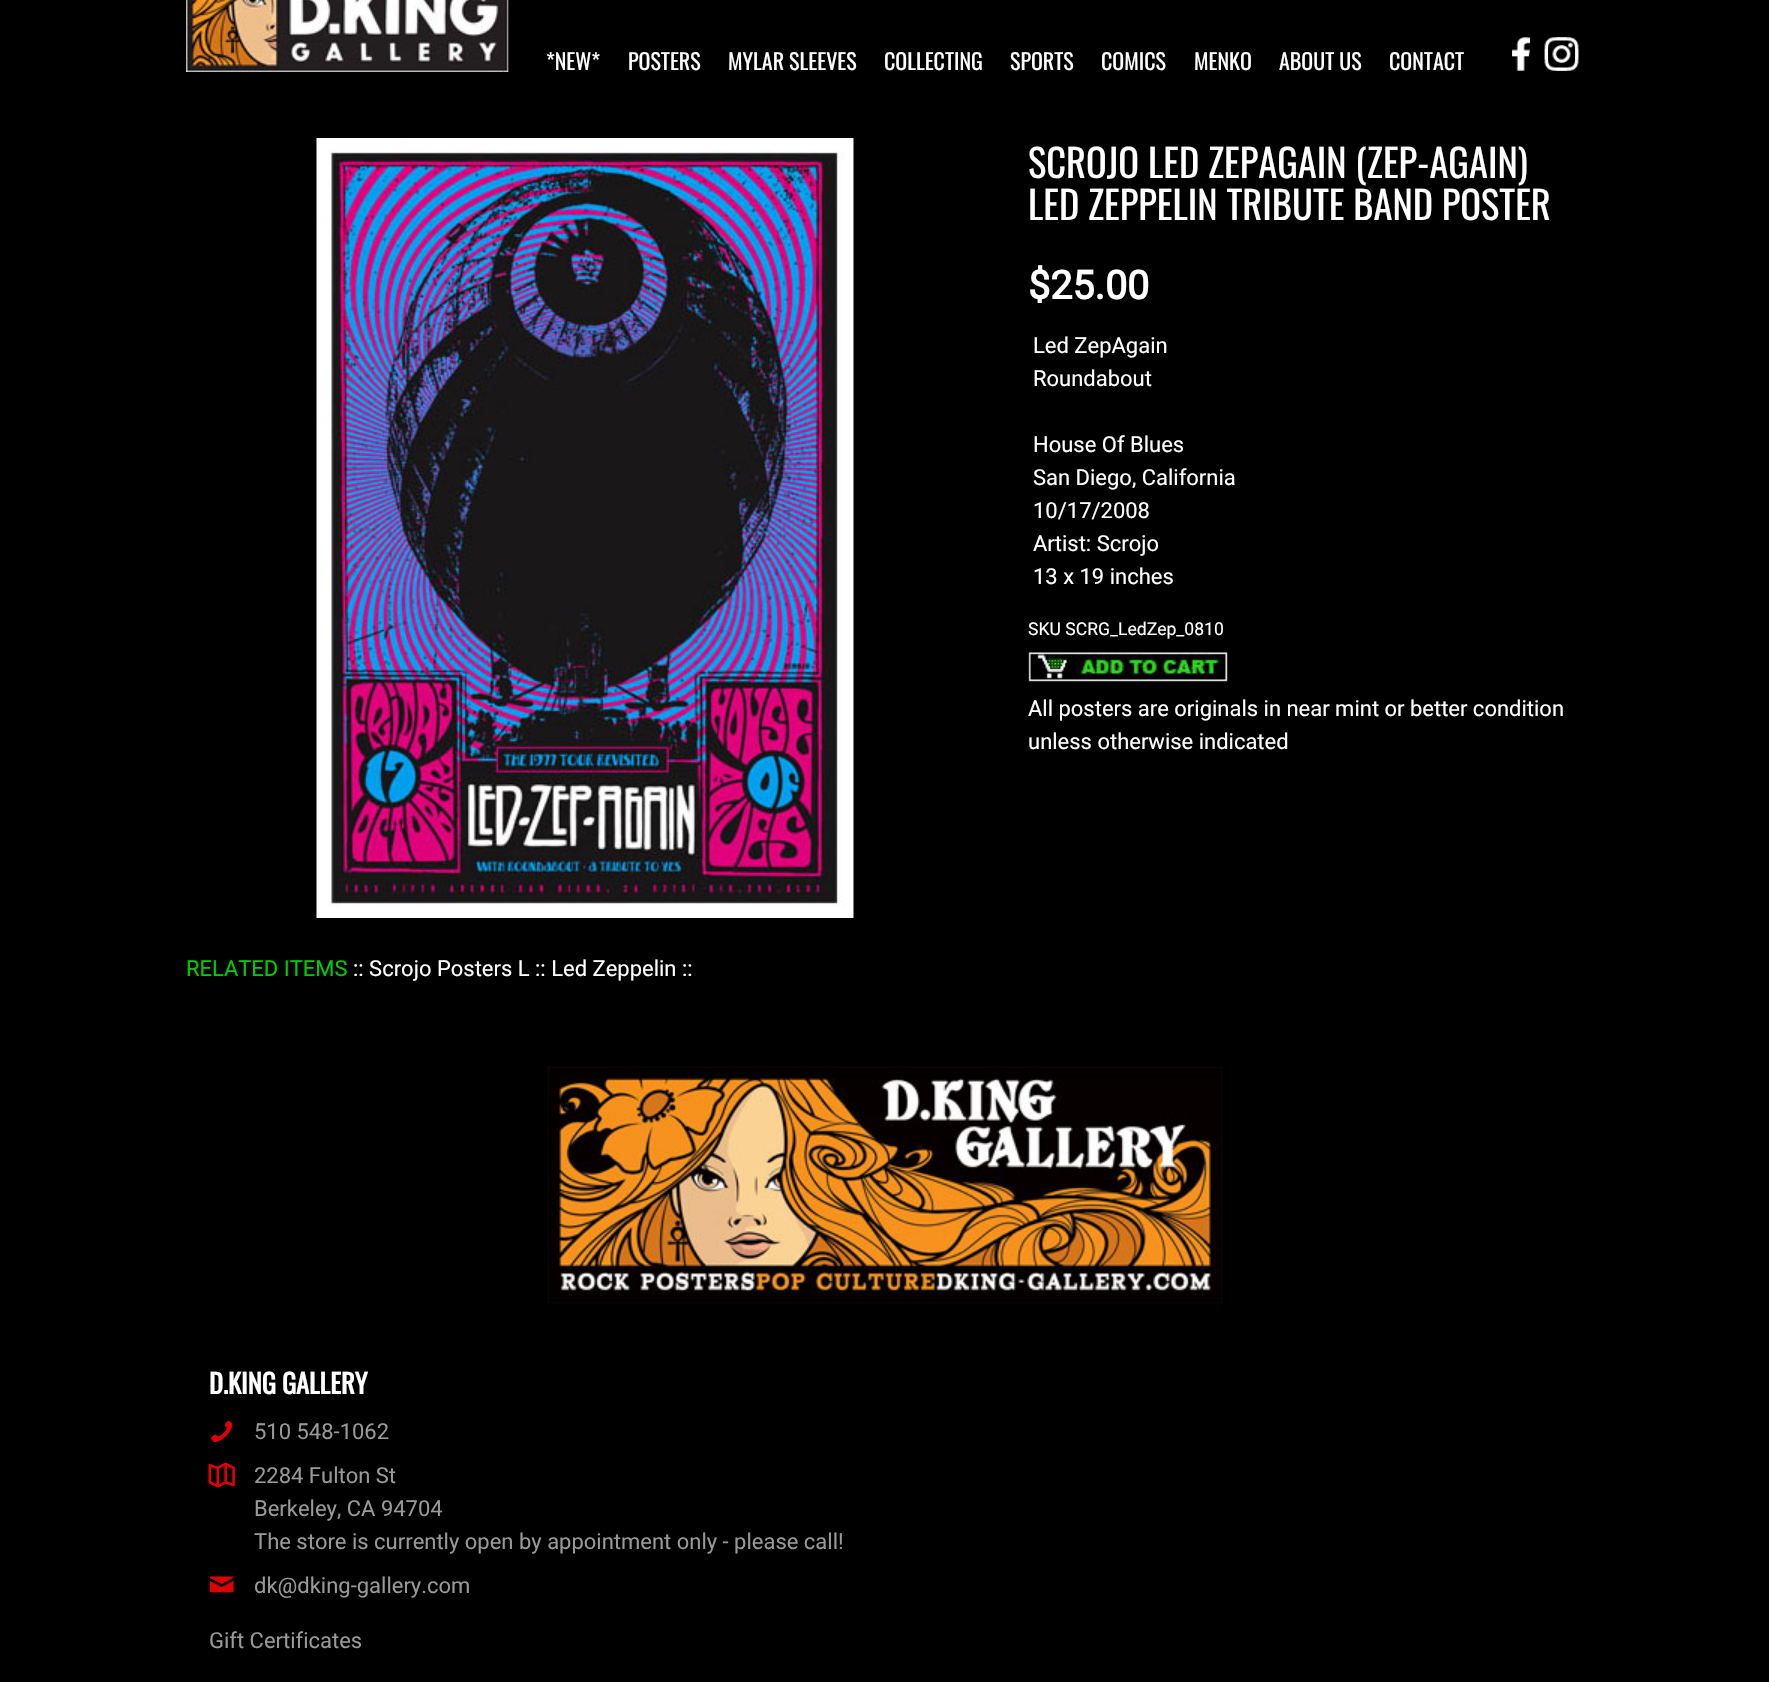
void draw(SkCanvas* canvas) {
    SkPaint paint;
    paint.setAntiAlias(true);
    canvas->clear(0xFF000000);
    canvas->drawImageRect(SkImages::DeferredFromEncodedData(SkData::MakeFromFileName("img1.png")), SkRect::MakeXYWH(186, 0, 323, 72), SkSamplingOptions());
    SkFont font1(fontMgr->matchFamilyStyle("Oswald", SkFontStyle::Normal()), 22);
    font1.setSubpixel(true);
    paint.setColor(0xFFFFFFFF);
    canvas->drawString("*NEW*", 546, 70, font1, paint);
    canvas->drawString("POSTERS", 628, 70, font1, paint);
    canvas->drawString("MYLAR SLEEVES", 728, 70, font1, paint);
    canvas->drawString("COLLECTING", 884, 70, font1, paint);
    canvas->drawString("SPORTS", 1010, 70, font1, paint);
    canvas->drawString("COMICS", 1101, 70, font1, paint);
    canvas->drawString("MENKO", 1194, 70, font1, paint);
    canvas->drawString("ABOUT US", 1279, 70, font1, paint);
    canvas->drawString("CONTACT", 1389, 70, font1, paint);
    canvas->drawImageRect(SkImages::DeferredFromEncodedData(SkData::MakeFromFileName("img2.png")), SkRect::MakeXYWH(1512, 37, 19, 34), SkSamplingOptions());
    canvas->drawImageRect(SkImages::DeferredFromEncodedData(SkData::MakeFromFileName("img3.png")), SkRect::MakeXYWH(1544, 37, 35, 34), SkSamplingOptions());
    canvas->drawImageRect(SkImages::DeferredFromEncodedData(SkData::MakeFromFileName("img4.png")), SkRect::MakeXYWH(316, 138, 538, 780), SkSamplingOptions());
    SkFont font2(fontMgr->matchFamilyStyle("Oswald", SkFontStyle::Normal()), 38.5f);
    font2.setSubpixel(true);
    canvas->drawString("SCROJO LED ZEPAGAIN (ZEP-AGAIN)", 1028, 178, font2, paint);
    canvas->drawString("LED ZEPPELIN TRIBUTE BAND POSTER", 1028, 220, font2, paint);
    SkFont font3(fontMgr->matchFamilyStyle("Roboto", SkFontStyle::Bold()), 39.5f);
    font3.setSubpixel(true);
    canvas->drawString("$25.00", 1028, 299, font3, paint);
    SkFont font4(fontMgr->matchFamilyStyle("Roboto", SkFontStyle::Normal()), 22);
    font4.setSubpixel(true);
    canvas->drawString("Led ZepAgain", 1033, 353, font4, paint);
    canvas->drawString("Roundabout", 1033, 386, font4, paint);
    canvas->drawString("House Of Blues", 1033, 452, font4, paint);
    canvas->drawString("San Diego, California", 1033, 485, font4, paint);
    canvas->drawString("10/17/2008", 1033, 518, font4, paint);
    canvas->drawString("Artist: Scrojo", 1033, 551, font4, paint);
    canvas->drawString("13 x 19 inches", 1033, 584, font4, paint);
    SkFont font5(fontMgr->matchFamilyStyle("Roboto", SkFontStyle::Normal()), 17.6f);
    font5.setSubpixel(true);
    canvas->drawString("SKU SCRG_LedZep_0810", 1028, 635, font5, paint);
    canvas->drawImageRect(SkImages::DeferredFromEncodedData(SkData::MakeFromFileName("img5.png")), SkRect::MakeXYWH(1028, 652, 200, 30), SkSamplingOptions());
    canvas->drawString("All posters are originals in near mint or better condition", 1028, 716, font4, paint);
    canvas->drawString("unless otherwise indicated", 1028, 749, font4, paint);
    paint.setColor(0xFF00CC00);
    canvas->drawString("RELATED ITEMS", 186, 976, font4, paint);
    paint.setColor(0xFFFFFFFF);
    canvas->drawString(":: Scrojo Posters L :: Led Zeppelin ::", 353, 976, font4, paint);
    canvas->drawImageRect(SkImages::DeferredFromEncodedData(SkData::MakeFromFileName("img6.png")), SkRect::MakeXYWH(547, 1066, 676, 238), SkSamplingOptions());
    SkFont font6(fontMgr->matchFamilyStyle("Oswald", SkFontStyle::Bold()), 26.5f);
    font6.setSubpixel(true);
    canvas->drawString("D.KING GALLERY", 209, 1394, font6, paint);
    canvas->drawImageRect(SkImages::DeferredFromEncodedData(SkData::MakeFromFileName("img7.png")), SkRect::MakeXYWH(211, 1420, 22, 22), SkSamplingOptions());
    paint.setColor(0xFF999999);
    canvas->drawString("510 548-1062", 254, 1439, font4, paint);
    canvas->drawImageRect(SkImages::DeferredFromEncodedData(SkData::MakeFromFileName("img8.png")), SkRect::MakeXYWH(208, 1462, 27, 26), SkSamplingOptions());
    canvas->drawString("2284 Fulton St", 254, 1483, font4, paint);
    canvas->drawString("Berkeley, CA 94704", 254, 1516, font4, paint);
    canvas->drawString("The store is currently open by appointment only - please call!", 254, 1549, font4, paint);
    canvas->drawImageRect(SkImages::DeferredFromEncodedData(SkData::MakeFromFileName("img9.png")), SkRect::MakeXYWH(209, 1576, 25, 17), SkSamplingOptions());
    canvas->drawString("dk@dking-gallery.com", 254, 1593, font4, paint);
    canvas->drawString("Gift Certificates", 209, 1648, font4, paint);
}
